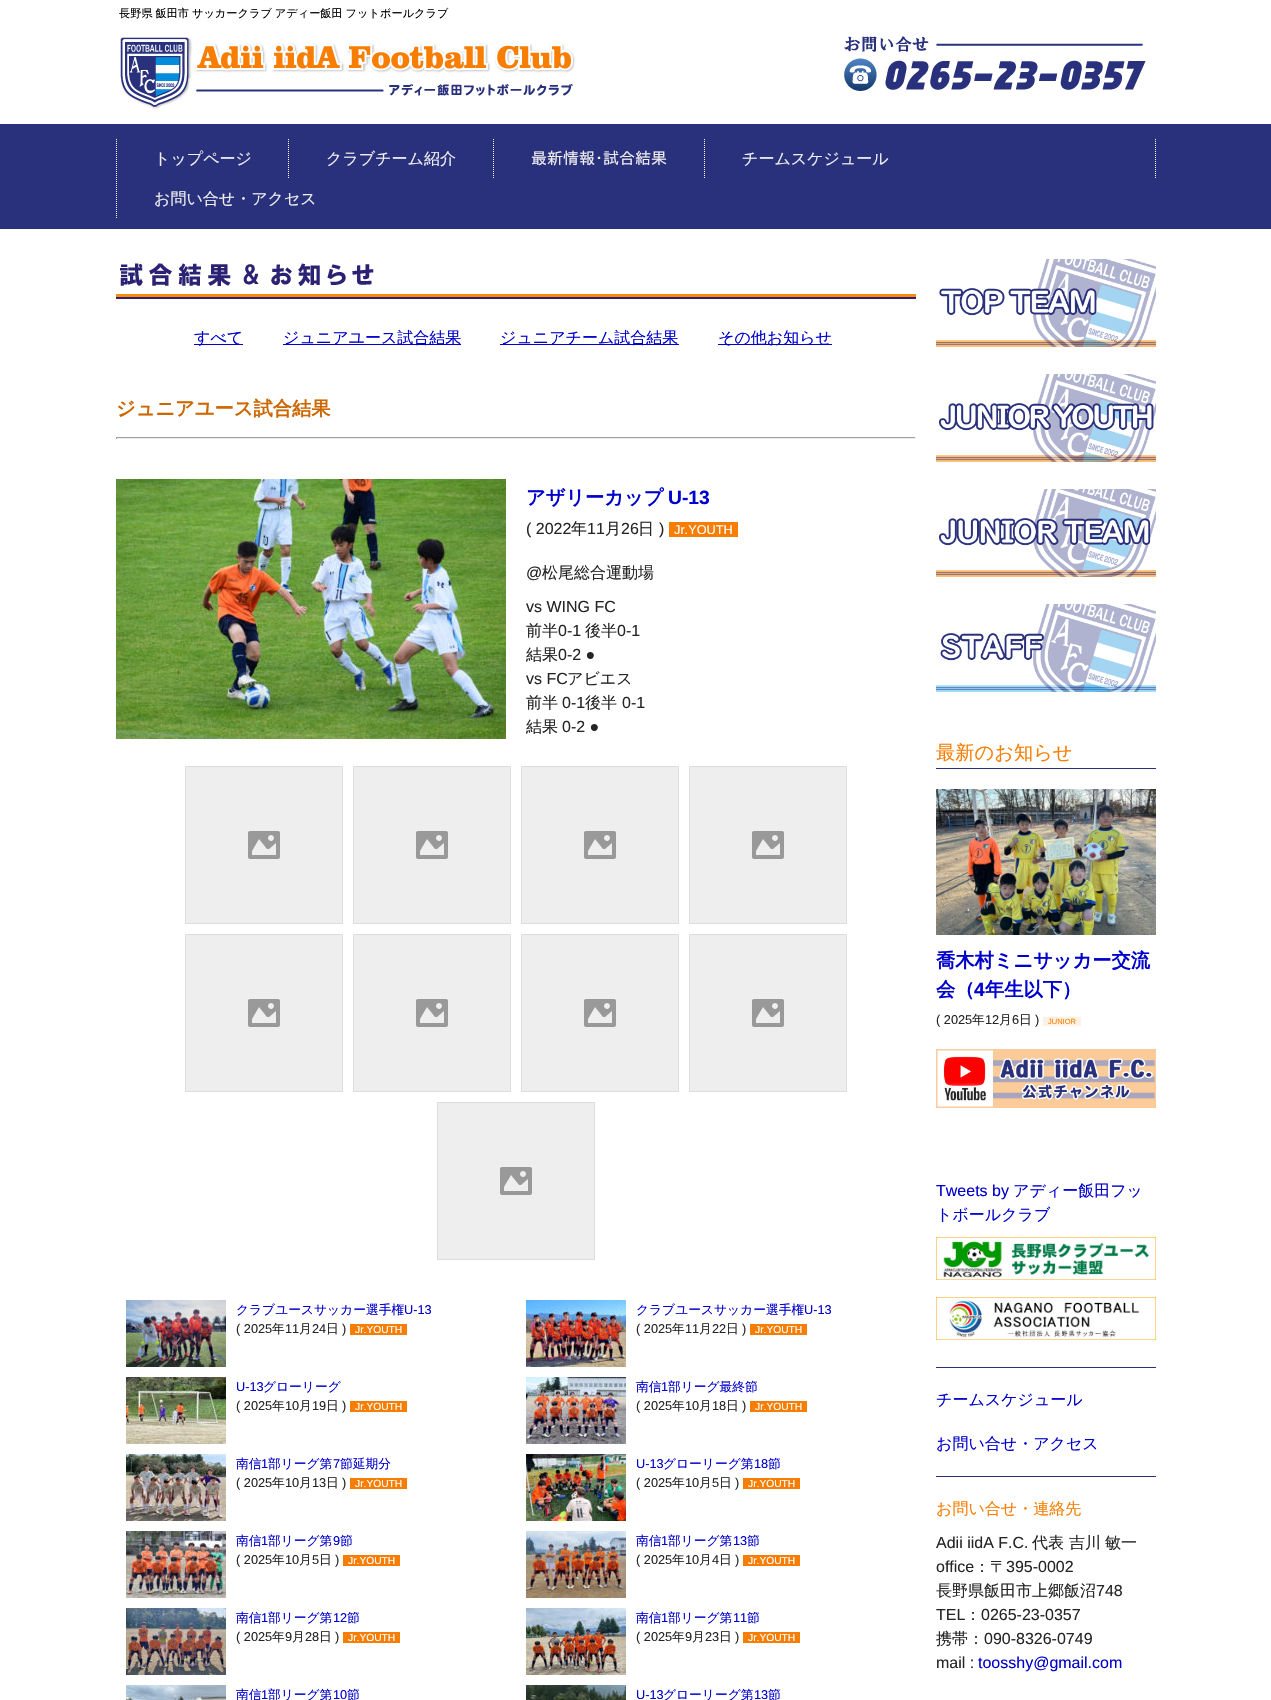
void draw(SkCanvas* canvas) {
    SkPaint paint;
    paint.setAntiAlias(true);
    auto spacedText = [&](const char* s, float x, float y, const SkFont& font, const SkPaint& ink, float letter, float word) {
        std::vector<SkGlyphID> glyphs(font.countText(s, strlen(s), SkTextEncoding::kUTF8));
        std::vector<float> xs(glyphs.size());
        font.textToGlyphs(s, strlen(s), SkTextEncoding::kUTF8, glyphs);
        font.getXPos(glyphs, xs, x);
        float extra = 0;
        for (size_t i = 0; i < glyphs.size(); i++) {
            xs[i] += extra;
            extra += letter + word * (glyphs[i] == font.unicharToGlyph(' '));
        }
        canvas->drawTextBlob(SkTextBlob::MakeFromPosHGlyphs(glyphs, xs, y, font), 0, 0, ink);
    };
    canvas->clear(0xFFFFFFFF);
    canvas->drawImageRect(SkImages::DeferredFromEncodedData(SkData::MakeFromFileName("img1.png")), SkRect::MakeXYWH(844, 36, 302, 55), SkSamplingOptions());
    SkFont font1(fontMgr->matchFamilyStyle("WenQuanYi Zen Hei", SkFontStyle(500, SkFontStyle::kNormal_Width, SkFontStyle::kUpright_Slant)), 11.2f);
    font1.setSubpixel(true);
    paint.setColor(0xFF000000);
    spacedText("長野県 飯田市 サッカークラブ アディー飯田 フットボールクラブ", 119, 17, font1, paint, 0, -0.5f);
    canvas->drawImageRect(SkImages::DeferredFromEncodedData(SkData::MakeFromFileName("img2.png")), SkRect::MakeXYWH(120, 37, 455, 72), SkSamplingOptions());
    paint.setColor(0xFF2A317C);
    canvas->drawRect(SkRect::MakeXYWH(0, 124, 1271, 105), paint);
    paint.setStyle(SkPaint::kStroke_Style);
    paint.setStrokeWidth(1);
    paint.setColor(0xFFFFFFFF);
    paint.setPathEffect(SkDashPathEffect::Make({{1, 1}}, 0));
    canvas->drawPath(SkPathBuilder().moveTo(1155.5f, 139).lineTo(1155.5f, 179).detach(), paint);
    paint.setPathEffect(nullptr);
    paint.setPathEffect(SkDashPathEffect::Make({{1, 1}}, 0));
    canvas->drawPath(SkPathBuilder().moveTo(116.5f, 139).lineTo(116.5f, 179).detach(), paint);
    paint.setPathEffect(nullptr);
    SkFont font2(fontMgr->matchFamilyStyle("WenQuanYi Zen Hei", SkFontStyle(500, SkFontStyle::kNormal_Width, SkFontStyle::kUpright_Slant)), 16);
    font2.setSubpixel(true);
    paint.setStyle(SkPaint::kFill_Style);
    paint.setColor(0xFFEFEFEF);
    canvas->drawString("トップページ", 154, 164, font2, paint);
    paint.setStyle(SkPaint::kStroke_Style);
    paint.setColor(0xFFFFFFFF);
    paint.setPathEffect(SkDashPathEffect::Make({{1, 1}}, 0));
    canvas->drawPath(SkPathBuilder().moveTo(288.5f, 139).lineTo(288.5f, 179).detach(), paint);
    paint.setPathEffect(nullptr);
    paint.setStyle(SkPaint::kFill_Style);
    paint.setColor(0xFFEFEFEF);
    canvas->drawString("クラブチーム紹介", 326, 164, font2, paint);
    paint.setStyle(SkPaint::kStroke_Style);
    paint.setColor(0xFFFFFFFF);
    paint.setPathEffect(SkDashPathEffect::Make({{1, 1}}, 0));
    canvas->drawPath(SkPathBuilder().moveTo(493.5f, 139).lineTo(493.5f, 179).detach(), paint);
    paint.setPathEffect(nullptr);
    SkFont font3(fontMgr->matchFamilyStyle("IPAPGothic", SkFontStyle::Normal()), 16);
    font3.setSubpixel(true);
    paint.setStyle(SkPaint::kFill_Style);
    paint.setColor(0xFFEFEFEF);
    canvas->drawString("最新情報･試合結果", 531, 164, font3, paint);
    paint.setStyle(SkPaint::kStroke_Style);
    paint.setColor(0xFFFFFFFF);
    paint.setPathEffect(SkDashPathEffect::Make({{1, 1}}, 0));
    canvas->drawPath(SkPathBuilder().moveTo(704.5f, 139).lineTo(704.5f, 179).detach(), paint);
    paint.setPathEffect(nullptr);
    paint.setStyle(SkPaint::kFill_Style);
    paint.setColor(0xFFEFEFEF);
    canvas->drawString("チームスケジュール", 742, 164, font2, paint);
    paint.setStyle(SkPaint::kStroke_Style);
    paint.setColor(0xFFFFFFFF);
    paint.setPathEffect(SkDashPathEffect::Make({{1, 1}}, 0));
    canvas->drawPath(SkPathBuilder().moveTo(116.5f, 179).lineTo(116.5f, 219).detach(), paint);
    paint.setPathEffect(nullptr);
    paint.setStyle(SkPaint::kFill_Style);
    paint.setColor(0xFFEFEFEF);
    canvas->drawString("お問い合せ・アクセス", 154, 204, font2, paint);
    canvas->drawImageRect(SkImages::DeferredFromEncodedData(SkData::MakeFromFileName("img3.png")), SkRect::MakeXYWH(116, 263, 800, 36), SkSamplingOptions());
    paint.setColor(0xFF0000CC);
    canvas->drawRect(SkRect::MakeXYWH(194, 344, 49, 1), paint);
    canvas->drawString("すべて", 194, 343, font2, paint);
    canvas->drawRect(SkRect::MakeXYWH(283, 344, 178, 1), paint);
    canvas->drawString("ジュニアユース試合結果", 283, 343, font2, paint);
    canvas->drawRect(SkRect::MakeXYWH(500, 344, 179, 1), paint);
    canvas->drawString("ジュニアチーム試合結果", 500, 343, font2, paint);
    canvas->drawRect(SkRect::MakeXYWH(718, 344, 114, 1), paint);
    canvas->drawString("その他お知らせ", 718, 343, font2, paint);
    SkFont font4(fontMgr->matchFamilyStyle("WenQuanYi Zen Hei", SkFontStyle::Bold()), 19.25f);
    font4.setSubpixel(true);
    paint.setColor(0xFFCC6701);
    canvas->drawString("ジュニアユース試合結果", 116, 415, font4, paint);
    paint.setColor(0xFF9F9F9F);
    canvas->drawRect(SkRect::MakeXYWH(116, 437, 800, 1), paint);
    paint.setColor(0xFFEEEEEE);
    canvas->drawRect(SkRect::MakeXYWH(915, 437, 1, 2), paint);
    canvas->drawRect(SkRect::MakeXYWH(116, 438, 800, 1), paint);
    paint.setColor(0xFF9F9F9F);
    canvas->drawRect(SkRect::MakeXYWH(116, 437, 1, 2), paint);
    canvas->drawImageRect(SkImages::DeferredFromEncodedData(SkData::MakeFromFileName("img4.png")), SkRect::MakeXYWH(116, 479, 390, 260), SkSamplingOptions());
    paint.setColor(0xFF0000CC);
    canvas->drawString("アザリーカップ", 526, 504, font4, paint);
    SkFont font5(fontMgr->matchFamilyStyle("Liberation Sans", SkFontStyle::Bold()), 19.25f);
    font5.setSubpixel(true);
    canvas->drawString("U-13", 668, 504, font5, paint);
    SkFont font6(fontMgr->matchFamilyStyle("Liberation Sans", SkFontStyle::Normal()), 16);
    font6.setSubpixel(true);
    paint.setColor(0xFF252525);
    canvas->drawString("( 2022", 526, 534, font6, paint);
    canvas->drawString("年", 571, 534, font2, paint);
    canvas->drawString("11", 587, 534, font6, paint);
    canvas->drawString("月", 605, 534, font2, paint);
    canvas->drawString("26", 621, 534, font6, paint);
    canvas->drawString("日", 638, 534, font2, paint);
    canvas->drawString(")", 659, 534, font6, paint);
    paint.setColor(0xFFF77E03);
    canvas->drawRect(SkRect::MakeXYWH(669, 522, 69, 15), paint);
    SkFont font7(fontMgr->matchFamilyStyle("Liberation Sans", SkFontStyle::Normal()), 12.75f);
    font7.setSubpixel(true);
    paint.setColor(0xFFFFFFFF);
    canvas->drawString("Jr.YOUTH", 674, 534, font7, paint);
    paint.setColor(0xFF252525);
    canvas->drawString("@", 526, 578, font6, paint);
    canvas->drawString("松尾総合運動場", 542, 578, font2, paint);
    canvas->drawString("vs WING FC", 526, 612, font6, paint);
    canvas->drawString("前半", 526, 636, font2, paint);
    canvas->drawString("0-1", 558, 636, font6, paint);
    canvas->drawString("後半", 585, 636, font2, paint);
    canvas->drawString("0-1", 617, 636, font6, paint);
    canvas->drawString("結果", 526, 660, font2, paint);
    canvas->drawString("0-2 ●", 558, 660, font6, paint);
    canvas->drawString("vs FC", 526, 684, font6, paint);
    canvas->drawString("アビエス", 567, 684, font2, paint);
    canvas->drawString("前半", 526, 708, font2, paint);
    canvas->drawString("0-1", 562, 708, font6, paint);
    canvas->drawString("後半", 585, 708, font2, paint);
    canvas->drawString("0-1", 622, 708, font6, paint);
    canvas->drawString("結果", 526, 732, font2, paint);
    canvas->drawString("0-2 ●", 562, 732, font6, paint);
    paint.setColor(0xFFEEEEEE);
    canvas->drawRect(SkRect::MakeXYWH(185.5f, 766.5f, 157, 157), paint);
    paint.setStyle(SkPaint::kStroke_Style);
    paint.setColor(0xFFDDDDDD);
    canvas->drawRect(SkRect::MakeXYWH(185.5f, 766.5f, 157, 157), paint);
    canvas->drawImageRect(SkImages::DeferredFromEncodedData(SkData::MakeFromFileName("img5.png")), SkRect::MakeXYWH(248, 831, 32, 28), SkSamplingOptions());
    paint.setStyle(SkPaint::kFill_Style);
    paint.setColor(0xFFEEEEEE);
    canvas->drawRect(SkRect::MakeXYWH(353.5f, 766.5f, 157, 157), paint);
    paint.setStyle(SkPaint::kStroke_Style);
    paint.setColor(0xFFDDDDDD);
    canvas->drawRect(SkRect::MakeXYWH(353.5f, 766.5f, 157, 157), paint);
    canvas->drawImageRect(SkImages::DeferredFromEncodedData(SkData::MakeFromFileName("img6.png")), SkRect::MakeXYWH(416, 831, 32, 28), SkSamplingOptions());
    paint.setStyle(SkPaint::kFill_Style);
    paint.setColor(0xFFEEEEEE);
    canvas->drawRect(SkRect::MakeXYWH(521.5f, 766.5f, 157, 157), paint);
    paint.setStyle(SkPaint::kStroke_Style);
    paint.setColor(0xFFDDDDDD);
    canvas->drawRect(SkRect::MakeXYWH(521.5f, 766.5f, 157, 157), paint);
    canvas->drawImageRect(SkImages::DeferredFromEncodedData(SkData::MakeFromFileName("img6.png")), SkRect::MakeXYWH(584, 831, 32, 28), SkSamplingOptions());
    paint.setStyle(SkPaint::kFill_Style);
    paint.setColor(0xFFEEEEEE);
    canvas->drawRect(SkRect::MakeXYWH(689.5f, 766.5f, 157, 157), paint);
    paint.setStyle(SkPaint::kStroke_Style);
    paint.setColor(0xFFDDDDDD);
    canvas->drawRect(SkRect::MakeXYWH(689.5f, 766.5f, 157, 157), paint);
    canvas->drawImageRect(SkImages::DeferredFromEncodedData(SkData::MakeFromFileName("img7.png")), SkRect::MakeXYWH(752, 831, 32, 28), SkSamplingOptions());
    paint.setStyle(SkPaint::kFill_Style);
    paint.setColor(0xFFEEEEEE);
    canvas->drawRect(SkRect::MakeXYWH(185.5f, 934.5f, 157, 157), paint);
    paint.setStyle(SkPaint::kStroke_Style);
    paint.setColor(0xFFDDDDDD);
    canvas->drawRect(SkRect::MakeXYWH(185.5f, 934.5f, 157, 157), paint);
    canvas->drawImageRect(SkImages::DeferredFromEncodedData(SkData::MakeFromFileName("img8.png")), SkRect::MakeXYWH(248, 999, 32, 28), SkSamplingOptions());
    paint.setStyle(SkPaint::kFill_Style);
    paint.setColor(0xFFEEEEEE);
    canvas->drawRect(SkRect::MakeXYWH(353.5f, 934.5f, 157, 157), paint);
    paint.setStyle(SkPaint::kStroke_Style);
    paint.setColor(0xFFDDDDDD);
    canvas->drawRect(SkRect::MakeXYWH(353.5f, 934.5f, 157, 157), paint);
    canvas->drawImageRect(SkImages::DeferredFromEncodedData(SkData::MakeFromFileName("img9.png")), SkRect::MakeXYWH(416, 999, 32, 28), SkSamplingOptions());
    paint.setStyle(SkPaint::kFill_Style);
    paint.setColor(0xFFEEEEEE);
    canvas->drawRect(SkRect::MakeXYWH(521.5f, 934.5f, 157, 157), paint);
    paint.setStyle(SkPaint::kStroke_Style);
    paint.setColor(0xFFDDDDDD);
    canvas->drawRect(SkRect::MakeXYWH(521.5f, 934.5f, 157, 157), paint);
    canvas->drawImageRect(SkImages::DeferredFromEncodedData(SkData::MakeFromFileName("img9.png")), SkRect::MakeXYWH(584, 999, 32, 28), SkSamplingOptions());
    paint.setStyle(SkPaint::kFill_Style);
    paint.setColor(0xFFEEEEEE);
    canvas->drawRect(SkRect::MakeXYWH(689.5f, 934.5f, 157, 157), paint);
    paint.setStyle(SkPaint::kStroke_Style);
    paint.setColor(0xFFDDDDDD);
    canvas->drawRect(SkRect::MakeXYWH(689.5f, 934.5f, 157, 157), paint);
    canvas->drawImageRect(SkImages::DeferredFromEncodedData(SkData::MakeFromFileName("img10.png")), SkRect::MakeXYWH(752, 999, 32, 28), SkSamplingOptions());
    paint.setStyle(SkPaint::kFill_Style);
    paint.setColor(0xFFEEEEEE);
    canvas->drawRect(SkRect::MakeXYWH(437.5f, 1102.5f, 157, 157), paint);
    paint.setStyle(SkPaint::kStroke_Style);
    paint.setColor(0xFFDDDDDD);
    canvas->drawRect(SkRect::MakeXYWH(437.5f, 1102.5f, 157, 157), paint);
    canvas->drawImageRect(SkImages::DeferredFromEncodedData(SkData::MakeFromFileName("img11.png")), SkRect::MakeXYWH(500, 1167, 32, 28), SkSamplingOptions());
    canvas->drawImageRect(SkImages::DeferredFromEncodedData(SkData::MakeFromFileName("img12.png")), SkRect::MakeXYWH(126, 1300, 100, 67), SkSamplingOptions());
    SkFont font8(fontMgr->matchFamilyStyle("WenQuanYi Zen Hei", SkFontStyle(500, SkFontStyle::kNormal_Width, SkFontStyle::kUpright_Slant)), 12.75f);
    font8.setSubpixel(true);
    paint.setStyle(SkPaint::kFill_Style);
    paint.setColor(0xFF0000CC);
    canvas->drawString("クラブユースサッカー選手権", 236, 1314, font8, paint);
    canvas->drawString("U-13", 404, 1314, font7, paint);
    paint.setColor(0xFF252525);
    canvas->drawString("( 2025", 236, 1333, font7, paint);
    canvas->drawString("年", 272, 1333, font8, paint);
    canvas->drawString("11", 285, 1333, font7, paint);
    canvas->drawString("月", 299, 1333, font8, paint);
    canvas->drawString("24", 312, 1333, font7, paint);
    canvas->drawString("日", 326, 1333, font8, paint);
    canvas->drawString(")", 342, 1333, font7, paint);
    paint.setColor(0xFFF77E03);
    canvas->drawRect(SkRect::MakeXYWH(350, 1324, 57, 11), paint);
    SkFont font9(fontMgr->matchFamilyStyle("Liberation Sans", SkFontStyle::Normal()), 10.25f);
    font9.setSubpixel(true);
    paint.setColor(0xFFFFFFFF);
    canvas->drawString("Jr.YOUTH", 355, 1333, font9, paint);
    canvas->drawImageRect(SkImages::DeferredFromEncodedData(SkData::MakeFromFileName("img13.png")), SkRect::MakeXYWH(526, 1300, 100, 67), SkSamplingOptions());
    paint.setColor(0xFF0000CC);
    canvas->drawString("クラブユースサッカー選手権", 636, 1314, font8, paint);
    canvas->drawString("U-13", 804, 1314, font7, paint);
    paint.setColor(0xFF252525);
    canvas->drawString("( 2025", 636, 1333, font7, paint);
    canvas->drawString("年", 672, 1333, font8, paint);
    canvas->drawString("11", 685, 1333, font7, paint);
    canvas->drawString("月", 699, 1333, font8, paint);
    canvas->drawString("22", 712, 1333, font7, paint);
    canvas->drawString("日", 726, 1333, font8, paint);
    canvas->drawString(")", 742, 1333, font7, paint);
    paint.setColor(0xFFF77E03);
    canvas->drawRect(SkRect::MakeXYWH(750, 1324, 57, 11), paint);
    paint.setColor(0xFFFFFFFF);
    canvas->drawString("Jr.YOUTH", 755, 1333, font9, paint);
    canvas->drawImageRect(SkImages::DeferredFromEncodedData(SkData::MakeFromFileName("img14.png")), SkRect::MakeXYWH(126, 1377, 100, 67), SkSamplingOptions());
    paint.setColor(0xFF0000CC);
    canvas->drawString("U-13", 236, 1391, font7, paint);
    canvas->drawString("グローリーグ", 263, 1391, font8, paint);
    paint.setColor(0xFF252525);
    canvas->drawString("( 2025", 236, 1410, font7, paint);
    canvas->drawString("年", 272, 1410, font8, paint);
    canvas->drawString("10", 285, 1410, font7, paint);
    canvas->drawString("月", 299, 1410, font8, paint);
    canvas->drawString("19", 312, 1410, font7, paint);
    canvas->drawString("日", 326, 1410, font8, paint);
    canvas->drawString(")", 342, 1410, font7, paint);
    paint.setColor(0xFFF77E03);
    canvas->drawRect(SkRect::MakeXYWH(350, 1401, 57, 11), paint);
    paint.setColor(0xFFFFFFFF);
    canvas->drawString("Jr.YOUTH", 355, 1410, font9, paint);
    canvas->drawImageRect(SkImages::DeferredFromEncodedData(SkData::MakeFromFileName("img15.png")), SkRect::MakeXYWH(526, 1377, 100, 67), SkSamplingOptions());
    paint.setColor(0xFF0000CC);
    canvas->drawString("南信", 636, 1391, font8, paint);
    canvas->drawString("1", 661, 1391, font7, paint);
    canvas->drawString("部リーグ最終節", 668, 1391, font8, paint);
    paint.setColor(0xFF252525);
    canvas->drawString("( 2025", 636, 1410, font7, paint);
    canvas->drawString("年", 672, 1410, font8, paint);
    canvas->drawString("10", 685, 1410, font7, paint);
    canvas->drawString("月", 699, 1410, font8, paint);
    canvas->drawString("18", 712, 1410, font7, paint);
    canvas->drawString("日", 726, 1410, font8, paint);
    canvas->drawString(")", 742, 1410, font7, paint);
    paint.setColor(0xFFF77E03);
    canvas->drawRect(SkRect::MakeXYWH(750, 1401, 57, 11), paint);
    paint.setColor(0xFFFFFFFF);
    canvas->drawString("Jr.YOUTH", 755, 1410, font9, paint);
    canvas->drawImageRect(SkImages::DeferredFromEncodedData(SkData::MakeFromFileName("img16.png")), SkRect::MakeXYWH(126, 1454, 100, 67), SkSamplingOptions());
    paint.setColor(0xFF0000CC);
    canvas->drawString("南信", 236, 1468, font8, paint);
    canvas->drawString("1", 261, 1468, font7, paint);
    canvas->drawString("部リーグ第", 268, 1468, font8, paint);
    canvas->drawString("7", 333, 1468, font7, paint);
    canvas->drawString("節延期分", 340, 1468, font8, paint);
    paint.setColor(0xFF252525);
    canvas->drawString("( 2025", 236, 1487, font7, paint);
    canvas->drawString("年", 272, 1487, font8, paint);
    canvas->drawString("10", 285, 1487, font7, paint);
    canvas->drawString("月", 299, 1487, font8, paint);
    canvas->drawString("13", 312, 1487, font7, paint);
    canvas->drawString("日", 326, 1487, font8, paint);
    canvas->drawString(")", 342, 1487, font7, paint);
    paint.setColor(0xFFF77E03);
    canvas->drawRect(SkRect::MakeXYWH(350, 1478, 57, 11), paint);
    paint.setColor(0xFFFFFFFF);
    canvas->drawString("Jr.YOUTH", 355, 1487, font9, paint);
    canvas->drawImageRect(SkImages::DeferredFromEncodedData(SkData::MakeFromFileName("img17.png")), SkRect::MakeXYWH(526, 1454, 100, 67), SkSamplingOptions());
    paint.setColor(0xFF0000CC);
    canvas->drawString("U-13", 636, 1468, font7, paint);
    canvas->drawString("グローリーグ第", 663, 1468, font8, paint);
    canvas->drawString("18", 754, 1468, font7, paint);
    canvas->drawString("節", 768, 1468, font8, paint);
    paint.setColor(0xFF252525);
    canvas->drawString("( 2025", 636, 1487, font7, paint);
    canvas->drawString("年", 672, 1487, font8, paint);
    canvas->drawString("10", 685, 1487, font7, paint);
    canvas->drawString("月", 699, 1487, font8, paint);
    canvas->drawString("5", 712, 1487, font7, paint);
    canvas->drawString("日", 719, 1487, font8, paint);
    canvas->drawString(")", 735, 1487, font7, paint);
    paint.setColor(0xFFF77E03);
    canvas->drawRect(SkRect::MakeXYWH(743, 1478, 57, 11), paint);
    paint.setColor(0xFFFFFFFF);
    canvas->drawString("Jr.YOUTH", 748, 1487, font9, paint);
    canvas->drawImageRect(SkImages::DeferredFromEncodedData(SkData::MakeFromFileName("img18.png")), SkRect::MakeXYWH(126, 1531, 100, 67), SkSamplingOptions());
    paint.setColor(0xFF0000CC);
    canvas->drawString("南信", 236, 1545, font8, paint);
    canvas->drawString("1", 261, 1545, font7, paint);
    canvas->drawString("部リーグ第", 268, 1545, font8, paint);
    canvas->drawString("9", 333, 1545, font7, paint);
    canvas->drawString("節", 340, 1545, font8, paint);
    paint.setColor(0xFF252525);
    canvas->drawString("( 2025", 236, 1564, font7, paint);
    canvas->drawString("年", 272, 1564, font8, paint);
    canvas->drawString("10", 285, 1564, font7, paint);
    canvas->drawString("月", 299, 1564, font8, paint);
    canvas->drawString("5", 312, 1564, font7, paint);
    canvas->drawString("日", 319, 1564, font8, paint);
    canvas->drawString(")", 335, 1564, font7, paint);
    paint.setColor(0xFFF77E03);
    canvas->drawRect(SkRect::MakeXYWH(343, 1555, 57, 11), paint);
    paint.setColor(0xFFFFFFFF);
    canvas->drawString("Jr.YOUTH", 348, 1564, font9, paint);
    canvas->drawImageRect(SkImages::DeferredFromEncodedData(SkData::MakeFromFileName("img19.png")), SkRect::MakeXYWH(526, 1531, 100, 67), SkSamplingOptions());
    paint.setColor(0xFF0000CC);
    canvas->drawString("南信", 636, 1545, font8, paint);
    canvas->drawString("1", 661, 1545, font7, paint);
    canvas->drawString("部リーグ第", 668, 1545, font8, paint);
    canvas->drawString("13", 733, 1545, font7, paint);
    canvas->drawString("節", 747, 1545, font8, paint);
    paint.setColor(0xFF252525);
    canvas->drawString("( 2025", 636, 1564, font7, paint);
    canvas->drawString("年", 672, 1564, font8, paint);
    canvas->drawString("10", 685, 1564, font7, paint);
    canvas->drawString("月", 699, 1564, font8, paint);
    canvas->drawString("4", 712, 1564, font7, paint);
    canvas->drawString("日", 719, 1564, font8, paint);
    canvas->drawString(")", 735, 1564, font7, paint);
    paint.setColor(0xFFF77E03);
    canvas->drawRect(SkRect::MakeXYWH(743, 1555, 57, 11), paint);
    paint.setColor(0xFFFFFFFF);
    canvas->drawString("Jr.YOUTH", 748, 1564, font9, paint);
    canvas->drawImageRect(SkImages::DeferredFromEncodedData(SkData::MakeFromFileName("img20.png")), SkRect::MakeXYWH(126, 1608, 100, 67), SkSamplingOptions());
    paint.setColor(0xFF0000CC);
    canvas->drawString("南信", 236, 1622, font8, paint);
    canvas->drawString("1", 261, 1622, font7, paint);
    canvas->drawString("部リーグ第", 268, 1622, font8, paint);
    canvas->drawString("12", 333, 1622, font7, paint);
    canvas->drawString("節", 347, 1622, font8, paint);
    paint.setColor(0xFF252525);
    canvas->drawString("( 2025", 236, 1641, font7, paint);
    canvas->drawString("年", 272, 1641, font8, paint);
    canvas->drawString("9", 285, 1641, font7, paint);
    canvas->drawString("月", 292, 1641, font8, paint);
    canvas->drawString("28", 305, 1641, font7, paint);
    canvas->drawString("日", 319, 1641, font8, paint);
    canvas->drawString(")", 335, 1641, font7, paint);
    paint.setColor(0xFFF77E03);
    canvas->drawRect(SkRect::MakeXYWH(343, 1632, 57, 11), paint);
    paint.setColor(0xFFFFFFFF);
    canvas->drawString("Jr.YOUTH", 348, 1641, font9, paint);
    canvas->drawImageRect(SkImages::DeferredFromEncodedData(SkData::MakeFromFileName("img21.png")), SkRect::MakeXYWH(526, 1608, 100, 67), SkSamplingOptions());
    paint.setColor(0xFF0000CC);
    canvas->drawString("南信", 636, 1622, font8, paint);
    canvas->drawString("1", 661, 1622, font7, paint);
    canvas->drawString("部リーグ第", 668, 1622, font8, paint);
    canvas->drawString("11", 733, 1622, font7, paint);
    canvas->drawString("節", 747, 1622, font8, paint);
    paint.setColor(0xFF252525);
    canvas->drawString("( 2025", 636, 1641, font7, paint);
    canvas->drawString("年", 672, 1641, font8, paint);
    canvas->drawString("9", 685, 1641, font7, paint);
    canvas->drawString("月", 692, 1641, font8, paint);
    canvas->drawString("23", 705, 1641, font7, paint);
    canvas->drawString("日", 719, 1641, font8, paint);
    canvas->drawString(")", 735, 1641, font7, paint);
    paint.setColor(0xFFF77E03);
    canvas->drawRect(SkRect::MakeXYWH(743, 1632, 57, 11), paint);
    paint.setColor(0xFFFFFFFF);
    canvas->drawString("Jr.YOUTH", 748, 1641, font9, paint);
    canvas->drawImageRect(SkImages::DeferredFromEncodedData(SkData::MakeFromFileName("img22.png")), SkRect::MakeXYWH(126, 1685, 100, 15), SkSamplingOptions());
    paint.setColor(0xFF0000CC);
    canvas->drawString("南信", 236, 1699, font8, paint);
    canvas->drawString("1", 261, 1699, font7, paint);
    canvas->drawString("部リーグ第", 268, 1699, font8, paint);
    canvas->drawString("10", 333, 1699, font7, paint);
    canvas->drawString("節", 347, 1699, font8, paint);
    canvas->drawImageRect(SkImages::DeferredFromEncodedData(SkData::MakeFromFileName("img23.png")), SkRect::MakeXYWH(526, 1685, 100, 15), SkSamplingOptions());
    canvas->drawString("U-13", 636, 1699, font7, paint);
    canvas->drawString("グローリーグ第", 663, 1699, font8, paint);
    canvas->drawString("13", 754, 1699, font7, paint);
    canvas->drawString("節", 768, 1699, font8, paint);
    canvas->drawImageRect(SkImages::DeferredFromEncodedData(SkData::MakeFromFileName("img24.png")), SkRect::MakeXYWH(936, 259, 220, 88), SkSamplingOptions());
    canvas->drawImageRect(SkImages::DeferredFromEncodedData(SkData::MakeFromFileName("img25.png")), SkRect::MakeXYWH(936, 374, 220, 88), SkSamplingOptions());
    canvas->drawImageRect(SkImages::DeferredFromEncodedData(SkData::MakeFromFileName("img26.png")), SkRect::MakeXYWH(936, 489, 220, 88), SkSamplingOptions());
    canvas->drawImageRect(SkImages::DeferredFromEncodedData(SkData::MakeFromFileName("img27.png")), SkRect::MakeXYWH(936, 604, 220, 88), SkSamplingOptions());
    paint.setColor(0xFF2A317C);
    canvas->drawRect(SkRect::MakeXYWH(936, 768, 220, 1), paint);
    SkFont font10(fontMgr->matchFamilyStyle("WenQuanYi Zen Hei", SkFontStyle(500, SkFontStyle::kNormal_Width, SkFontStyle::kUpright_Slant)), 19.25f);
    font10.setSubpixel(true);
    paint.setColor(0xFFF77E03);
    canvas->drawString("最新のお知らせ", 936, 759, font10, paint);
    canvas->drawImageRect(SkImages::DeferredFromEncodedData(SkData::MakeFromFileName("img28.png")), SkRect::MakeXYWH(936, 789, 220, 146), SkSamplingOptions());
    paint.setColor(0xFF0000CC);
    canvas->drawString("喬木村ミニサッカー交流", 936, 967, font4, paint);
    canvas->drawString("会（", 936, 996, font4, paint);
    canvas->drawString("4", 974, 996, font5, paint);
    canvas->drawString("年生以下）", 985, 996, font4, paint);
    paint.setColor(0xFF252525);
    canvas->drawString("( 2025", 936, 1024, font7, paint);
    canvas->drawString("年", 972, 1024, font8, paint);
    canvas->drawString("12", 985, 1024, font7, paint);
    canvas->drawString("月", 999, 1024, font8, paint);
    canvas->drawString("6", 1012, 1024, font7, paint);
    canvas->drawString("日", 1019, 1024, font8, paint);
    canvas->drawString(")", 1035, 1024, font7, paint);
    paint.setColor(0xFFFFF2E5);
    canvas->drawRect(SkRect::MakeXYWH(1043, 1017, 38, 9), paint);
    SkFont font11(fontMgr->matchFamilyStyle("Liberation Sans", SkFontStyle::Normal()), 7.5f);
    font11.setSubpixel(true);
    paint.setColor(0xFFF77E03);
    canvas->drawString("JUNIOR", 1048, 1024, font11, paint);
    canvas->drawImageRect(SkImages::DeferredFromEncodedData(SkData::MakeFromFileName("img29.png")), SkRect::MakeXYWH(936, 1049, 220, 59), SkSamplingOptions());
    paint.setColor(0xFF0000CC);
    canvas->drawString("Tweets by", 936, 1196, font6, paint);
    canvas->drawString("アディー飯田フッ", 1013, 1196, font2, paint);
    canvas->drawString("トボールクラブ", 936, 1220, font2, paint);
    canvas->drawImageRect(SkImages::DeferredFromEncodedData(SkData::MakeFromFileName("img30.png")), SkRect::MakeXYWH(936, 1237, 220, 43), SkSamplingOptions());
    canvas->drawImageRect(SkImages::DeferredFromEncodedData(SkData::MakeFromFileName("img31.png")), SkRect::MakeXYWH(936, 1297, 220, 43), SkSamplingOptions());
    paint.setColor(0xFF2A317C);
    canvas->drawRect(SkRect::MakeXYWH(936, 1367, 220, 1), paint);
    canvas->drawRect(SkRect::MakeXYWH(936, 1476, 220, 1), paint);
    paint.setColor(0xFF0000CC);
    canvas->drawString("チームスケジュール", 936, 1405, font2, paint);
    canvas->drawString("お問い合せ・アクセス", 936, 1449, font2, paint);
    paint.setColor(0xFFF77E03);
    canvas->drawString("お問い合せ・連絡先", 936, 1514, font2, paint);
    paint.setColor(0xFF252525);
    canvas->drawString("Adii iidA F.C.", 936, 1548, font6, paint);
    canvas->drawString("代表", 1032, 1548, font2, paint);
    canvas->drawString("吉川", 1069, 1548, font2, paint);
    canvas->drawString("敏一", 1105, 1548, font2, paint);
    canvas->drawString("office", 936, 1572, font6, paint);
    canvas->drawString("：〒", 974, 1572, font2, paint);
    canvas->drawString("395-0002", 1006, 1572, font6, paint);
    canvas->drawString("長野県飯田市上郷飯沼", 936, 1596, font2, paint);
    canvas->drawString("748", 1096, 1596, font6, paint);
    canvas->drawString("TEL", 936, 1620, font6, paint);
    canvas->drawString("：", 965, 1620, font2, paint);
    canvas->drawString("0265-23-0357", 981, 1620, font6, paint);
    canvas->drawString("携帯：", 936, 1644, font2, paint);
    canvas->drawString("090-8326-0749", 984, 1644, font6, paint);
    canvas->drawString("mail :", 936, 1668, font6, paint);
    paint.setColor(0xFF0000CC);
    canvas->drawString("toosshy@gmail.com", 978, 1668, font6, paint);
}
